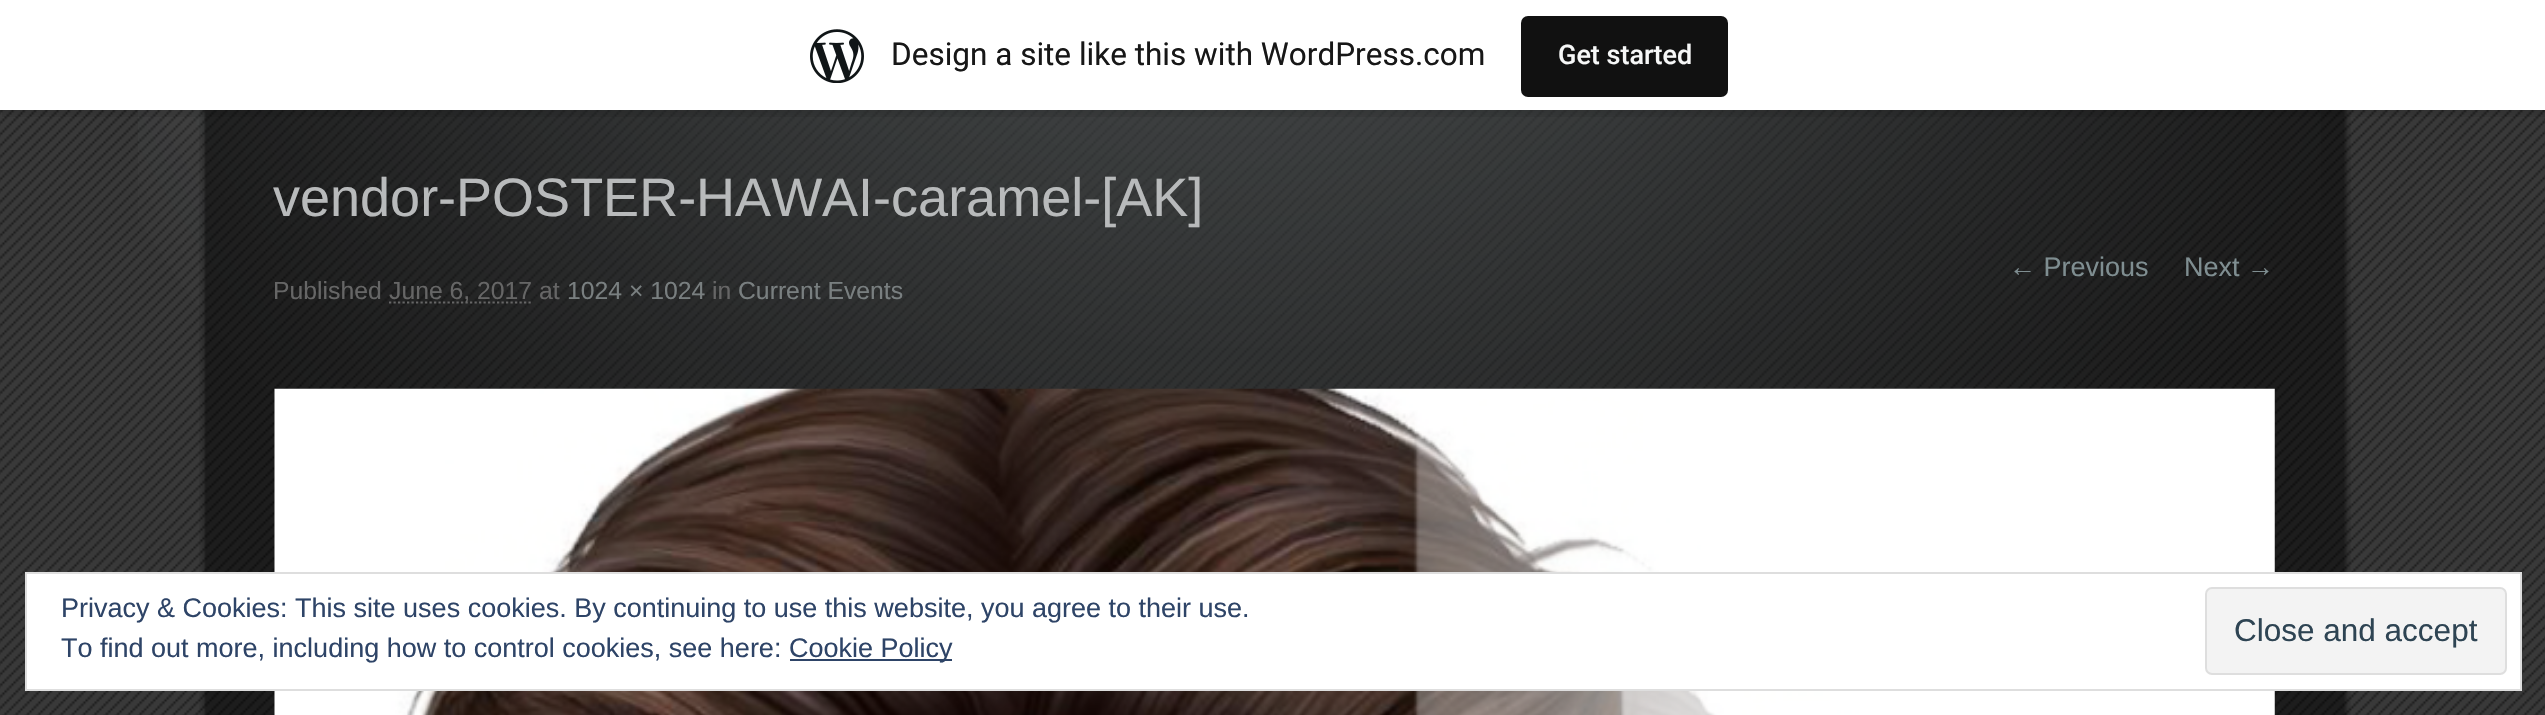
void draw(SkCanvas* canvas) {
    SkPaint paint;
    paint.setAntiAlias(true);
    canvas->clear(0xFFFFFFFF);
    canvas->drawImageRect(SkImages::DeferredFromEncodedData(SkData::MakeFromFileName("img1.png")), SkRect::MakeXYWH(0, 110, 2545, 605), SkSamplingOptions());
    canvas->drawImageRect(SkImages::DeferredFromEncodedData(SkData::MakeFromFileName("img3.png")), SkRect::MakeXYWH(138, 110, 2183, 279), SkSamplingOptions());
    canvas->drawImageRect(SkImages::DeferredFromEncodedData(SkData::MakeFromFileName("img4.png")), SkRect::MakeXYWH(199, 110, 2152, 605), SkSamplingOptions());
    paint.setColor(0x0D000000);
    paint.setMaskFilter(SkMaskFilter::MakeBlur(kNormal_SkBlurStyle, 2));
    canvas->drawRect(SkRect::MakeXYWH(0, 2, 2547, 111), paint);
    paint.setMaskFilter(nullptr);
    paint.setColor(0x14000000);
    canvas->drawPath(SkPathBuilder().moveTo(2, 110).lineTo(2, 117).lineTo(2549, 117).lineTo(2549, 7).lineTo(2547, 7).lineTo(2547, 110).close().detach(), paint);
    paint.setColor(0xFFFFFFFF);
    canvas->drawRect(SkRect::MakeXYWH(0, 0, 2545, 110), paint);
    canvas->drawImageRect(SkImages::DeferredFromEncodedData(SkData::MakeFromFileName("img2.png")), SkRect::MakeXYWH(810, 29, 54, 54), SkSamplingOptions());
    SkFont font1(fontMgr->matchFamilyStyle("Roboto", SkFontStyle::Normal()), 31.5f);
    font1.setSubpixel(true);
    paint.setColor(0xFF171717);
    canvas->drawString("Design a site like this with WordPress.com", 891, 65, font1, paint);
    paint.setColor(0xFF111111);
    canvas->drawRoundRect(SkRect::MakeXYWH(1521, 16, 207, 81), 7, 7, paint);
    SkFont font2(fontMgr->matchFamilyStyle("Roboto", SkFontStyle(500, SkFontStyle::kNormal_Width, SkFontStyle::kUpright_Slant)), 27);
    font2.setSubpixel(true);
    paint.setColor(0xFFF6F7F7);
    canvas->drawString("Get started", 1558, 64, font2, paint);
    SkFont font3(fontMgr->matchFamilyStyle("Liberation Sans", SkFontStyle::Normal()), 54);
    font3.setSubpixel(true);
    paint.setColor(0xFFB8BABB);
    canvas->drawString("vendor-POSTER-HAWAI-caramel-[AK]", 273, 216, font3, paint);
    SkFont font4(fontMgr->matchFamilyStyle("Liberation Sans", SkFontStyle::Normal()), 27);
    font4.setSubpixel(true);
    paint.setColor(0xFF7F8E91);
    canvas->drawString("← Previous", 2009, 276, font4, paint);
    canvas->drawString("Next →", 2184, 276, font4, paint);
    SkFont font5(fontMgr->matchFamilyStyle("Liberation Sans", SkFontStyle::Normal()), 24.75f);
    font5.setSubpixel(true);
    paint.setColor(0xFF666666);
    canvas->drawString("Published", 273, 299, font5, paint);
    paint.setStyle(SkPaint::kStroke_Style);
    paint.setStrokeWidth(2.2f);
    paint.setPathEffect(SkDashPathEffect::Make({{2.25f, 2.25f}}, 0));
    canvas->drawPath(SkPathBuilder().moveTo(389, 302.5f).lineTo(532, 302.5f).detach(), paint);
    paint.setPathEffect(nullptr);
    paint.setStyle(SkPaint::kFill_Style);
    canvas->drawString("June 6, 2017 at", 389, 299, font5, paint);
    paint.setColor(0xFF797F80);
    canvas->drawString("1024 × 1024", 567, 299, font5, paint);
    paint.setColor(0xFF666666);
    canvas->drawString("in", 712, 299, font5, paint);
    paint.setColor(0xFF797F80);
    canvas->drawString("Current Events", 738, 299, font5, paint);
    canvas->drawImageRect(SkImages::DeferredFromEncodedData(SkData::MakeFromFileName("img5.png")), SkRect::MakeXYWH(274, 388, 2001, 327), SkSamplingOptions());
    paint.setColor(0xFFFFFFFF);
    canvas->drawRect(SkRect::MakeXYWH(26, 573, 2495, 117), paint);
    paint.setStyle(SkPaint::kStroke_Style);
    paint.setStrokeWidth(2);
    paint.setColor(0xFFDEDEDE);
    canvas->drawRect(SkRect::MakeXYWH(26, 573, 2495, 117), paint);
    paint.setStyle(SkPaint::kFill_Style);
    paint.setColor(0xFF2E4467);
    canvas->drawString("Privacy & Cookies: This site uses cookies. By continuing to use this website, you agree to their use.", 61, 617, font4, paint);
    canvas->drawString("To find out more, including how to control cookies, see here:", 61, 657, font4, paint);
    canvas->drawRect(SkRect::MakeXYWH(790, 659, 162, 2), paint);
    canvas->drawString("Cookie Policy", 789, 657, font4, paint);
    paint.setColor(0xFFF3F3F3);
    canvas->drawRoundRect(SkRect::MakeXYWH(2206, 588, 300, 86), 6, 6, paint);
    paint.setStyle(SkPaint::kStroke_Style);
    paint.setColor(0xFFDEDEDE);
    canvas->drawRoundRect(SkRect::MakeXYWH(2206, 588, 300, 86), 6, 6, paint);
    SkFont font6(fontMgr->matchFamilyStyle("Liberation Sans", SkFontStyle::Normal()), 31.5f);
    font6.setSubpixel(true);
    paint.setStyle(SkPaint::kFill_Style);
    paint.setColor(0xFF2E4453);
    canvas->drawString("Close and accept", 2234, 641, font6, paint);
}
